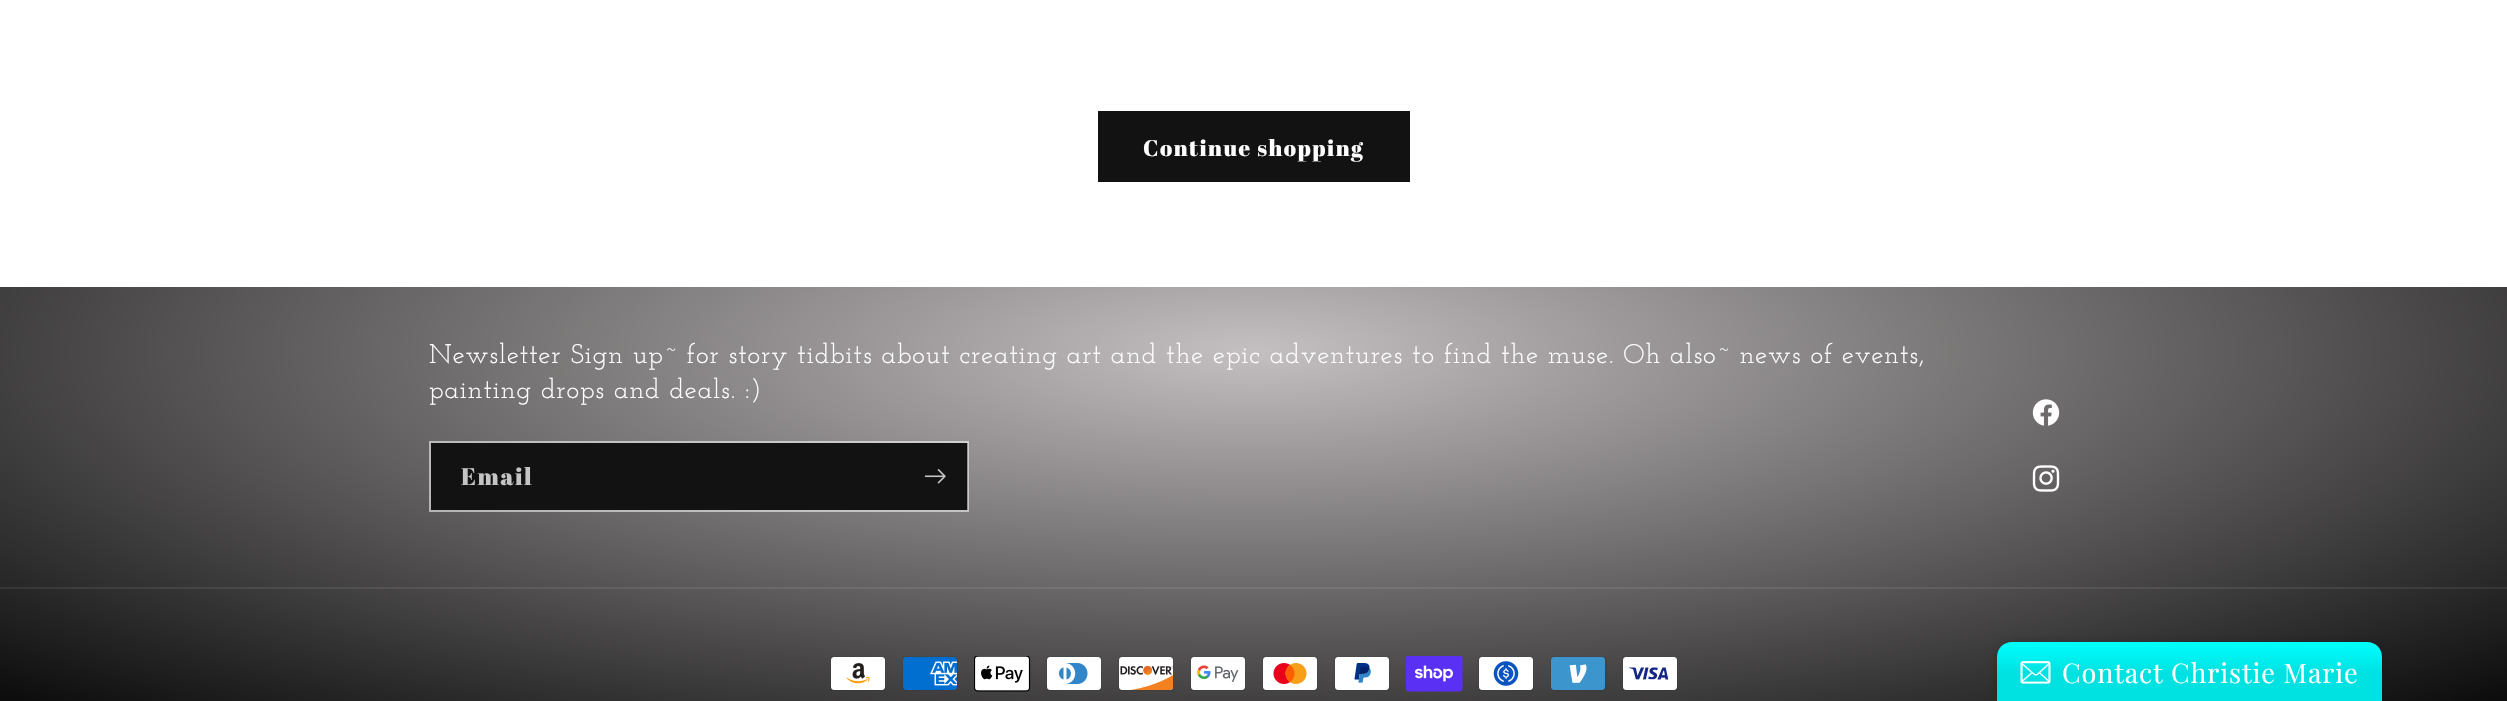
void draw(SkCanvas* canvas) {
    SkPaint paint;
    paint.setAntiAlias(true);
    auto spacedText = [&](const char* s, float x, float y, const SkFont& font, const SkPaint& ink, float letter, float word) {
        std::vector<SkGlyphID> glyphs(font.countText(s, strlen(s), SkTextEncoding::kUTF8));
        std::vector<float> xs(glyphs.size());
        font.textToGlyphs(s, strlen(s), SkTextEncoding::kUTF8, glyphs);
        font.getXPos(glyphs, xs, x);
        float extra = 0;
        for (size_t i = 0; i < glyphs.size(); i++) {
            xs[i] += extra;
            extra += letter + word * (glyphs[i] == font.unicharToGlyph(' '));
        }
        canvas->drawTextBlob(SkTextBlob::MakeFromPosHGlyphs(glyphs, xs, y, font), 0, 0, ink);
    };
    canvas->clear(0xFFFFFFFF);
    paint.setColor(0xFF121212);
    canvas->drawRect(SkRect::MakeXYWH(1098, 111, 312, 71), paint);
    SkFont font1(fontMgr->matchFamilyStyle("Abril Fatface", SkFontStyle::Normal()), 22.5f);
    font1.setSubpixel(true);
    paint.setColor(0xFFFFFFFF);
    spacedText("Continue shopping", 1143, 156, font1, paint, 1.5f, 0);
    {
        const SkColor colors[] = {0xFFC4BFC0, 0xFF0D0D0D};
        const float stops[] = {0, 0.99f};
        SkMatrix m = SkMatrix::Translate(1254, 351).preScale(1773, 496);
        paint.setShader(SkGradientShader::MakeRadial({0, 0}, 1, colors, stops, 2, SkTileMode::kClamp, 0, &m));
        paint.setAlpha(255);
    }
    canvas->drawRect(SkRect::MakeXYWH(0, 287, 2507, 414), paint);
    {
        const SkColor colors[] = {0xFFC9C4C5, 0xFF202020};
        const float stops[] = {0, 0.99f};
        SkMatrix m = SkMatrix::Translate(1254, 351).preScale(1773, 496);
        paint.setShader(SkGradientShader::MakeRadial({0, 0}, 1, colors, stops, 2, SkTileMode::kClamp, 0, &m));
        paint.setAlpha(255);
    }
    canvas->drawRect(SkRect::MakeXYWH(0, 587, 2507, 2), paint);
    SkFont font2(fontMgr->matchFamilyStyle("Josefin Slab", SkFontStyle::Normal()), 27);
    font2.setSubpixel(true);
    paint.setShader(nullptr);
    paint.setColor(0xFFFFFFFF);
    spacedText("Newsletter Sign up~ for story tidbits about creating art and the epic adventures to find the muse. Oh also~ news of events,", 429, 363, font2, paint, 0.9f, 0);
    spacedText("painting drops and deals. :)", 429, 398, font2, paint, 0.9f, 0);
    paint.setColor(0xFF121212);
    canvas->drawRect(SkRect::MakeXYWH(431, 443, 537, 67), paint);
    paint.setStyle(SkPaint::kStroke_Style);
    paint.setStrokeWidth(2);
    paint.setColor(0x8CFFFFFF);
    canvas->drawRect(SkRect::MakeXYWH(430, 442, 538, 69), paint);
    SkFont font3(fontMgr->matchFamilyStyle("Abril Fatface", SkFontStyle::Normal()), 24);
    font3.setSubpixel(true);
    paint.setStyle(SkPaint::kFill_Style);
    paint.setColor(0xFFC4C4C4);
    spacedText("Email", 461, 485, font3, paint, 1.5f, 0);
    canvas->drawImageRect(SkImages::DeferredFromEncodedData(SkData::MakeFromFileName("img1.png")), SkRect::MakeXYWH(924, 469, 22, 15), SkSamplingOptions());
    canvas->drawImageRect(SkImages::DeferredFromEncodedData(SkData::MakeFromFileName("img2.png")), SkRect::MakeXYWH(2032, 399, 28, 27), SkSamplingOptions());
    canvas->drawImageRect(SkImages::DeferredFromEncodedData(SkData::MakeFromFileName("img3.png")), SkRect::MakeXYWH(2032, 465, 28, 27), SkSamplingOptions());
    canvas->drawImageRect(SkImages::DeferredFromEncodedData(SkData::MakeFromFileName("img4.png")), SkRect::MakeXYWH(830, 656, 56, 35), SkSamplingOptions());
    canvas->drawImageRect(SkImages::DeferredFromEncodedData(SkData::MakeFromFileName("img5.png")), SkRect::MakeXYWH(902, 656, 56, 35), SkSamplingOptions());
    canvas->drawImageRect(SkImages::DeferredFromEncodedData(SkData::MakeFromFileName("img6.png")), SkRect::MakeXYWH(974, 656, 57, 36), SkSamplingOptions());
    canvas->drawImageRect(SkImages::DeferredFromEncodedData(SkData::MakeFromFileName("img7.png")), SkRect::MakeXYWH(1046, 656, 56, 35), SkSamplingOptions());
    canvas->drawImageRect(SkImages::DeferredFromEncodedData(SkData::MakeFromFileName("img8.png")), SkRect::MakeXYWH(1118, 656, 56, 35), SkSamplingOptions());
    canvas->drawImageRect(SkImages::DeferredFromEncodedData(SkData::MakeFromFileName("img9.png")), SkRect::MakeXYWH(1190, 656, 56, 35), SkSamplingOptions());
    canvas->drawImageRect(SkImages::DeferredFromEncodedData(SkData::MakeFromFileName("img10.png")), SkRect::MakeXYWH(1262, 656, 56, 35), SkSamplingOptions());
    canvas->drawImageRect(SkImages::DeferredFromEncodedData(SkData::MakeFromFileName("img11.png")), SkRect::MakeXYWH(1334, 656, 56, 35), SkSamplingOptions());
    canvas->drawImageRect(SkImages::DeferredFromEncodedData(SkData::MakeFromFileName("img12.png")), SkRect::MakeXYWH(1406, 656, 57, 36), SkSamplingOptions());
    canvas->drawImageRect(SkImages::DeferredFromEncodedData(SkData::MakeFromFileName("img13.png")), SkRect::MakeXYWH(1478, 656, 56, 35), SkSamplingOptions());
    canvas->drawImageRect(SkImages::DeferredFromEncodedData(SkData::MakeFromFileName("img14.png")), SkRect::MakeXYWH(1550, 656, 57, 36), SkSamplingOptions());
    canvas->drawImageRect(SkImages::DeferredFromEncodedData(SkData::MakeFromFileName("img15.png")), SkRect::MakeXYWH(1622, 656, 56, 35), SkSamplingOptions());
    paint.setColor(0x33000000);
    paint.setMaskFilter(SkMaskFilter::MakeBlur(kNormal_SkBlurStyle, 4));
    canvas->drawRoundRect(SkRect::MakeXYWH(1997, 642, 385, 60), 15, 15, paint);
    paint.setMaskFilter(nullptr);
    {
        const SkColor colors[] = {0xFF00FFFF, 0xFF00E1E1};
        const float stops[] = {0, 0.5f};
        const SkPoint ends[] = {{2189, 642}, {2189, 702}};
        paint.setShader(SkGradientShader::MakeLinear(ends, colors, stops, 2, SkTileMode::kClamp));
        paint.setAlpha(255);
    }
    canvas->drawPath(SkPathBuilder().moveTo(2012, 642).lineTo(2367, 642).cubicTo(2375.5f, 642, 2382, 648.5f, 2382, 657).lineTo(2382, 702).lineTo(1997, 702).lineTo(1997, 657).cubicTo(1997, 648.5f, 2003.5f, 642, 2012, 642).close().detach(), paint);
    canvas->drawImageRect(SkImages::DeferredFromEncodedData(SkData::MakeFromFileName("img16.png")), SkRect::MakeXYWH(2020, 661, 31, 23), SkSamplingOptions());
    SkFont font4(fontMgr->matchFamilyStyle("Playfair Display", SkFontStyle::Normal()), 27);
    font4.setSubpixel(true);
    paint.setShader(nullptr);
    paint.setColor(0xFFFFFFFF);
    spacedText("Contact Christie Marie", 2062, 683, font4, paint, 0.9f, 0);
}
